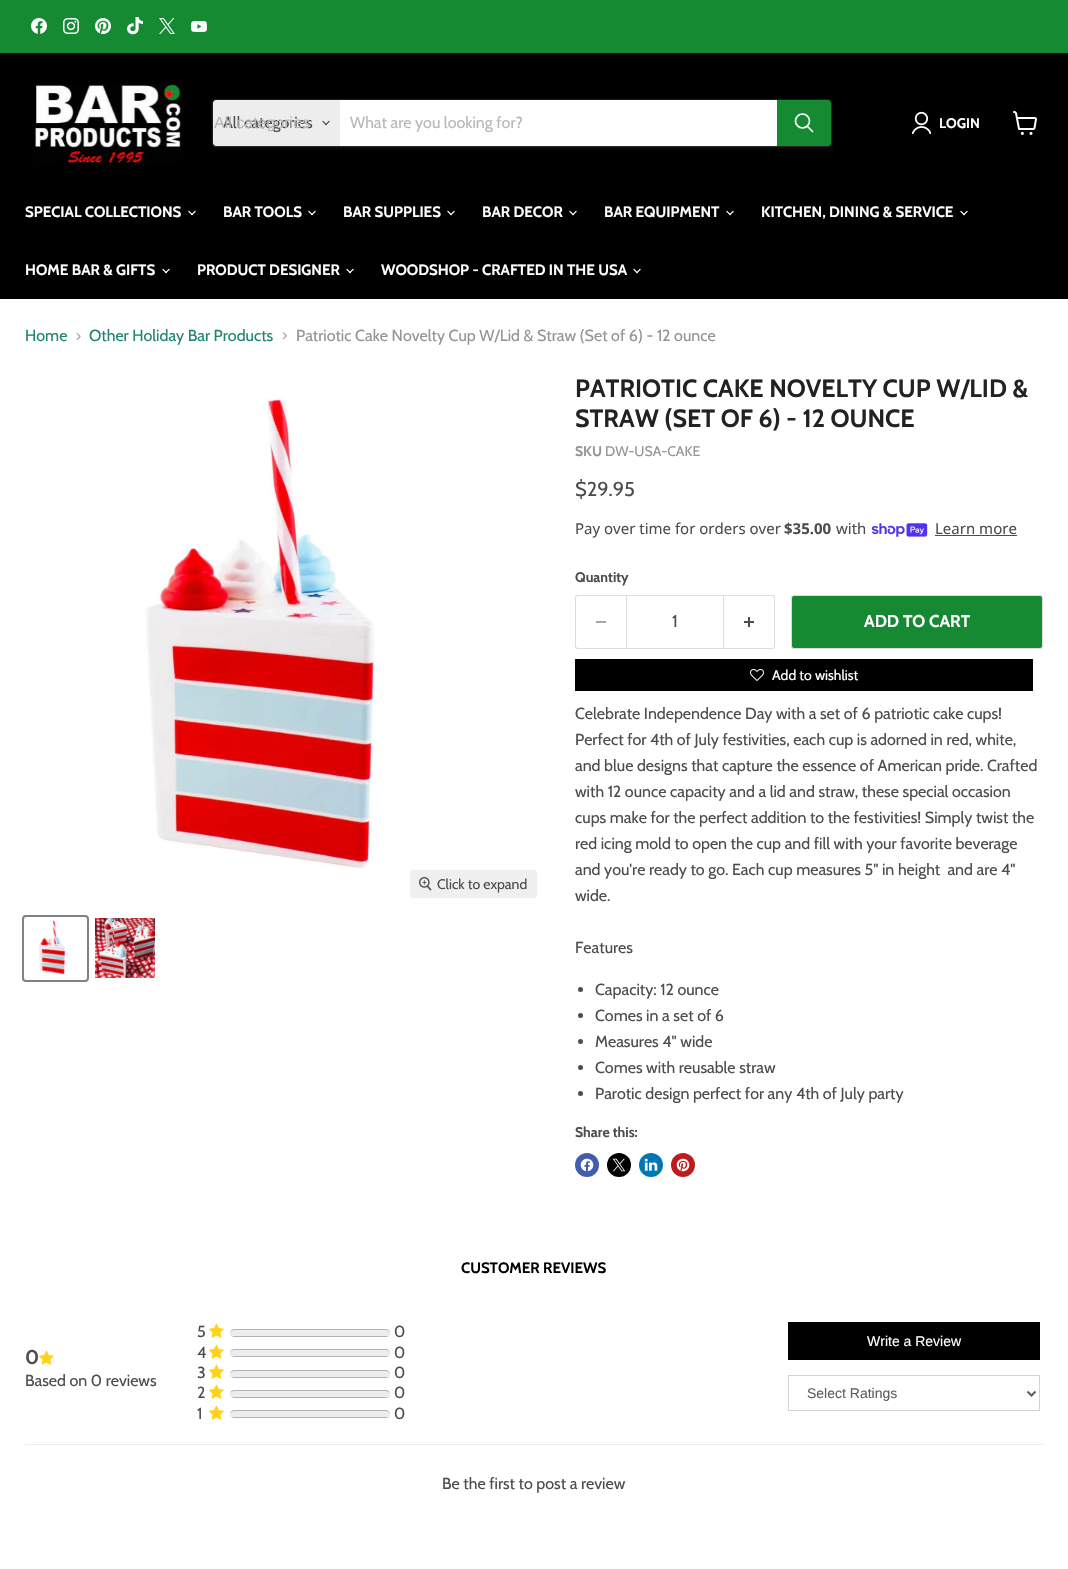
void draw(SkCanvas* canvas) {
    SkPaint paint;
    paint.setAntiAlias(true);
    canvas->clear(0xFFFFFFFF);
    paint.setColor(0xFF158A33);
    canvas->drawRect(SkRect::MakeXYWH(0, 0, 1068, 53), paint);
    canvas->drawImageRect(SkImages::DeferredFromEncodedData(SkData::MakeFromFileName("img1.png")), SkRect::MakeXYWH(31, 18, 16, 16), SkSamplingOptions());
    canvas->drawImageRect(SkImages::DeferredFromEncodedData(SkData::MakeFromFileName("img2.png")), SkRect::MakeXYWH(63, 18, 16, 16), SkSamplingOptions());
    canvas->drawImageRect(SkImages::DeferredFromEncodedData(SkData::MakeFromFileName("img3.png")), SkRect::MakeXYWH(95, 18, 16, 16), SkSamplingOptions());
    canvas->drawImageRect(SkImages::DeferredFromEncodedData(SkData::MakeFromFileName("img4.png")), SkRect::MakeXYWH(127, 17, 16, 18), SkSamplingOptions());
    canvas->drawImageRect(SkImages::DeferredFromEncodedData(SkData::MakeFromFileName("img5.png")), SkRect::MakeXYWH(159, 18, 16, 16), SkSamplingOptions());
    canvas->drawImageRect(SkImages::DeferredFromEncodedData(SkData::MakeFromFileName("img6.png")), SkRect::MakeXYWH(191, 21, 16, 11), SkSamplingOptions());
    paint.setColor(0xFF000000);
    canvas->drawRect(SkRect::MakeXYWH(0, 53, 1068, 246), paint);
    canvas->drawImageRect(SkImages::DeferredFromEncodedData(SkData::MakeFromFileName("img7.png")), SkRect::MakeXYWH(33, 84, 150, 84), SkSamplingOptions());
    paint.setColor(0x1C808080);
    paint.setMaskFilter(SkMaskFilter::MakeBlur(kNormal_SkBlurStyle, 1.5f));
    canvas->drawRoundRect(SkRect::MakeXYWH(212, 101, 620, 48), 4, 4, paint);
    paint.setMaskFilter(nullptr);
    paint.setStyle(SkPaint::kStroke_Style);
    paint.setStrokeWidth(1);
    paint.setColor(0x33808080);
    canvas->drawRoundRect(SkRect::MakeXYWH(212.5f, 99.5f, 619, 47), 3.5f, 3.5f, paint);
    paint.setStyle(SkPaint::kFill_Style);
    paint.setColor(0xFFEDEDED);
    canvas->drawPath(SkPathBuilder().moveTo(216, 100).lineTo(340, 100).lineTo(340, 146).lineTo(216, 146).cubicTo(214.5f, 146, 213, 144.5f, 213, 143).lineTo(213, 103).cubicTo(213, 101.5f, 214.5f, 100, 216, 100).close().detach(), paint);
    SkFont font1(fontMgr->matchFamilyStyle("Cabin", SkFontStyle::Normal()), 16);
    font1.setSubpixel(true);
    paint.setColor(0xFF4D4D4D);
    canvas->drawString("All categories", 223, 128, font1, paint);
    SkFont font2(fontMgr->matchFamilyStyle("Liberation Sans", SkFontStyle::Normal()), 16);
    font2.setSubpixel(true);
    paint.setColor(0xFFB8B8B8);
    canvas->drawString("All categories", 214, 128, font2, paint);
    canvas->drawImageRect(SkImages::DeferredFromEncodedData(SkData::MakeFromFileName("img8.png")), SkRect::MakeXYWH(322, 120, 8, 6), SkSamplingOptions());
    paint.setColor(0xFFFFFFFF);
    canvas->drawRect(SkRect::MakeXYWH(340, 100, 437, 46), paint);
    paint.setColor(0xFFB8B8B8);
    canvas->drawString("What are you looking for?", 350, 128, font1, paint);
    paint.setColor(0xFF158A33);
    canvas->drawPath(SkPathBuilder().moveTo(777.5f, 100.5f).lineTo(828, 100.5f).cubicTo(829.5f, 100.5f, 830.5f, 101.5f, 830.5f, 103).lineTo(830.5f, 143).cubicTo(830.5f, 144.5f, 829.5f, 145.5f, 828, 145.5f).lineTo(777.5f, 145.5f).close().detach(), paint);
    paint.setStyle(SkPaint::kStroke_Style);
    canvas->drawPath(SkPathBuilder().moveTo(777.5f, 100.5f).lineTo(828, 100.5f).cubicTo(829.5f, 100.5f, 830.5f, 101.5f, 830.5f, 103).lineTo(830.5f, 143).cubicTo(830.5f, 144.5f, 829.5f, 145.5f, 828, 145.5f).lineTo(777.5f, 145.5f).close().detach(), paint);
    paint.setStrokeWidth(1.7f);
    paint.setStrokeCap(SkPaint::kRound_Cap);
    paint.setColor(0xFFFFFFFF);
    canvas->drawPath(SkPathBuilder().moveTo(812.5f, 131.5f).lineTo(807.5f, 126.5f).detach(), paint);
    paint.setStrokeCap(SkPaint::kButt_Cap);
    canvas->drawCircle(802.5f, 121, 7, paint);
    canvas->drawImageRect(SkImages::DeferredFromEncodedData(SkData::MakeFromFileName("img9.png")), SkRect::MakeXYWH(911, 111, 20, 24), SkSamplingOptions());
    SkFont font3(fontMgr->matchFamilyStyle("Cabin", SkFontStyle::Bold()), 14);
    font3.setSubpixel(true);
    paint.setStyle(SkPaint::kFill_Style);
    canvas->drawString("LOGIN", 939, 128, font3, paint);
    canvas->drawImageRect(SkImages::DeferredFromEncodedData(SkData::MakeFromFileName("img10.png")), SkRect::MakeXYWH(1013, 111, 24, 24), SkSamplingOptions());
    SkFont font4(fontMgr->matchFamilyStyle("Cabin", SkFontStyle::Bold()), 15);
    font4.setSubpixel(true);
    canvas->drawString("SPECIAL COLLECTIONS", 25, 217, font4, paint);
    canvas->drawImageRect(SkImages::DeferredFromEncodedData(SkData::MakeFromFileName("img11.png")), SkRect::MakeXYWH(188, 210, 8, 6), SkSamplingOptions());
    canvas->drawString("BAR TOOLS", 223, 217, font4, paint);
    canvas->drawImageRect(SkImages::DeferredFromEncodedData(SkData::MakeFromFileName("img11.png")), SkRect::MakeXYWH(308, 210, 8, 6), SkSamplingOptions());
    canvas->drawString("BAR SUPPLIES", 343, 217, font4, paint);
    canvas->drawImageRect(SkImages::DeferredFromEncodedData(SkData::MakeFromFileName("img11.png")), SkRect::MakeXYWH(447, 210, 8, 6), SkSamplingOptions());
    canvas->drawString("BAR DECOR", 482, 217, font4, paint);
    canvas->drawImageRect(SkImages::DeferredFromEncodedData(SkData::MakeFromFileName("img11.png")), SkRect::MakeXYWH(569, 210, 8, 6), SkSamplingOptions());
    canvas->drawString("BAR EQUIPMENT", 604, 217, font4, paint);
    canvas->drawImageRect(SkImages::DeferredFromEncodedData(SkData::MakeFromFileName("img11.png")), SkRect::MakeXYWH(726, 210, 8, 6), SkSamplingOptions());
    canvas->drawString("KITCHEN, DINING & SERVICE", 761, 217, font4, paint);
    canvas->drawImageRect(SkImages::DeferredFromEncodedData(SkData::MakeFromFileName("img11.png")), SkRect::MakeXYWH(960, 210, 8, 6), SkSamplingOptions());
    canvas->drawString("HOME BAR & GIFTS", 25, 275, font4, paint);
    canvas->drawImageRect(SkImages::DeferredFromEncodedData(SkData::MakeFromFileName("img11.png")), SkRect::MakeXYWH(162, 268, 8, 6), SkSamplingOptions());
    canvas->drawString("PRODUCT DESIGNER", 197, 275, font4, paint);
    canvas->drawImageRect(SkImages::DeferredFromEncodedData(SkData::MakeFromFileName("img11.png")), SkRect::MakeXYWH(346, 268, 8, 6), SkSamplingOptions());
    canvas->drawString("WOODSHOP - CRAFTED IN THE USA", 381, 275, font4, paint);
    canvas->drawImageRect(SkImages::DeferredFromEncodedData(SkData::MakeFromFileName("img11.png")), SkRect::MakeXYWH(633, 268, 8, 6), SkSamplingOptions());
    paint.setColor(0xFF1E8570);
    canvas->drawString("Home", 25, 341, font1, paint);
    canvas->drawImageRect(SkImages::DeferredFromEncodedData(SkData::MakeFromFileName("img12.png")), SkRect::MakeXYWH(76, 333, 5, 7), SkSamplingOptions());
    canvas->drawString("Other Holiday Bar Products", 89, 341, font1, paint);
    canvas->drawImageRect(SkImages::DeferredFromEncodedData(SkData::MakeFromFileName("img13.png")), SkRect::MakeXYWH(282, 332, 5, 8), SkSamplingOptions());
    paint.setColor(0xFF949494);
    canvas->drawString("Patriotic Cake Novelty Cup W/Lid & Straw (Set of 6) - 12 ounce", 296, 341, font1, paint);
    canvas->drawImageRect(SkImages::DeferredFromEncodedData(SkData::MakeFromFileName("img14.png")), SkRect::MakeXYWH(146, 397, 232, 472), SkSamplingOptions());
    paint.setColor(0xFFEFEFEF);
    canvas->drawRoundRect(SkRect::MakeXYWH(410, 870, 127, 28), 3, 3, paint);
    canvas->drawImageRect(SkImages::DeferredFromEncodedData(SkData::MakeFromFileName("img15.png")), SkRect::MakeXYWH(419, 877, 13, 14), SkSamplingOptions());
    SkFont font5(fontMgr->matchFamilyStyle("Cabin", SkFontStyle::Normal()), 14);
    font5.setSubpixel(true);
    paint.setColor(0xFF4D4D4D);
    canvas->drawString("Click to expand", 437, 889, font5, paint);
    paint.setStyle(SkPaint::kStroke_Style);
    paint.setStrokeWidth(2);
    paint.setColor(0xFF818181);
    canvas->drawRoundRect(SkRect::MakeXYWH(23, 916, 65, 65), 3, 3, paint);
    canvas->drawImageRect(SkImages::DeferredFromEncodedData(SkData::MakeFromFileName("img16.png")), SkRect::MakeXYWH(38, 919, 32, 57), SkSamplingOptions());
    canvas->drawImageRect(SkImages::DeferredFromEncodedData(SkData::MakeFromFileName("img17.png")), SkRect::MakeXYWH(95, 918, 60, 60), SkSamplingOptions());
    SkFont font6(fontMgr->matchFamilyStyle("Cabin", SkFontStyle::Bold()), 25);
    font6.setSubpixel(true);
    paint.setStyle(SkPaint::kFill_Style);
    paint.setColor(0xFF222222);
    canvas->drawString("PATRIOTIC CAKE NOVELTY CUP W/LID &", 575, 397, font6, paint);
    canvas->drawString("STRAW (SET OF 6) - 12 OUNCE", 575, 427, font6, paint);
    paint.setColor(0xFF949494);
    canvas->drawString("SKU", 575, 456, font3, paint);
    canvas->drawString("DW-USA-CAKE", 605, 456, font5, paint);
    SkFont font7(fontMgr->matchFamilyStyle("Cabin", SkFontStyle::Normal()), 20);
    font7.setSubpixel(true);
    paint.setColor(0xFF4D4D4D);
    canvas->drawString("$29.95", 575, 496, font7, paint);
    SkFont font8(fontMgr->matchFamilyStyle("Noto Sans", SkFontStyle::Normal()), 15);
    font8.setSubpixel(true);
    canvas->drawString("Pay over time for orders over", 575, 534, font8, paint);
    SkFont font9(fontMgr->matchFamilyStyle("Noto Sans", SkFontStyle::Bold()), 15);
    font9.setSubpixel(true);
    canvas->drawString("$35.00", 784, 534, font9, paint);
    canvas->drawString("with", 836, 534, font8, paint);
    canvas->drawImageRect(SkImages::DeferredFromEncodedData(SkData::MakeFromFileName("img18.png")), SkRect::MakeXYWH(871, 523, 57, 14), SkSamplingOptions());
    canvas->drawString("Learn more", 935, 534, font8, paint);
    canvas->drawRect(SkRect::MakeXYWH(935, 535, 82, 1), paint);
    canvas->drawString("Quantity", 575, 582, font3, paint);
    paint.setColor(0xFFDDDDDD);
    canvas->drawPath(SkPathBuilder(SkPathFillType::kEvenOdd).moveTo(578, 595).lineTo(626, 595).lineTo(626, 649).lineTo(578, 649).cubicTo(576, 649, 575, 648, 575, 646).lineTo(575, 598).cubicTo(575, 596, 576, 595, 578, 595).close().moveTo(578, 596).lineTo(626, 596).lineTo(626, 648).lineTo(578, 648).cubicTo(577, 648, 576, 647, 576, 646).lineTo(576, 598).cubicTo(576, 597, 577, 596, 578, 596).close().detach(), paint);
    paint.setColor(0xFFA6A6A6);
    canvas->drawRect(SkRect::MakeXYWH(596, 621, 10, 2), paint);
    paint.setStyle(SkPaint::kStroke_Style);
    paint.setStrokeWidth(1);
    paint.setColor(0xFFDDDDDD);
    canvas->drawRect(SkRect::MakeXYWH(626.5f, 595.5f, 97, 53), paint);
    SkFont font10(fontMgr->matchFamilyStyle("Cabin", SkFontStyle::Normal()), 17);
    font10.setSubpixel(true);
    paint.setStyle(SkPaint::kFill_Style);
    paint.setColor(0xFF4D4D4D);
    canvas->drawString("1", 672, 627, font10, paint);
    paint.setColor(0xFFDDDDDD);
    canvas->drawPath(SkPathBuilder(SkPathFillType::kEvenOdd).moveTo(724, 595).lineTo(772, 595).cubicTo(774, 595, 775, 596, 775, 598).lineTo(775, 646).cubicTo(775, 648, 774, 649, 772, 649).lineTo(724, 649).close().moveTo(724, 596).lineTo(772, 596).cubicTo(773, 596, 774, 597, 774, 598).lineTo(774, 646).cubicTo(774, 647, 773, 648, 772, 648).lineTo(724, 648).close().detach(), paint);
    canvas->drawImageRect(SkImages::DeferredFromEncodedData(SkData::MakeFromFileName("img19.png")), SkRect::MakeXYWH(744, 617, 10, 10), SkSamplingOptions());
    paint.setColor(0xFF158A33);
    canvas->drawRoundRect(SkRect::MakeXYWH(791.5f, 595.5f, 251, 53), 2.5f, 2.5f, paint);
    paint.setStyle(SkPaint::kStroke_Style);
    paint.setColor(0xFFDDDDDD);
    canvas->drawRoundRect(SkRect::MakeXYWH(791.5f, 595.5f, 251, 53), 2.5f, 2.5f, paint);
    SkFont font11(fontMgr->matchFamilyStyle("Cabin", SkFontStyle::Bold()), 17);
    font11.setSubpixel(true);
    paint.setStyle(SkPaint::kFill_Style);
    paint.setColor(0xFFFFFFFF);
    canvas->drawString("ADD TO CART", 864, 627, font11, paint);
    paint.setColor(0xFF000000);
    canvas->drawRect(SkRect::MakeXYWH(575, 659, 458, 32), paint);
    canvas->drawImageRect(SkImages::DeferredFromEncodedData(SkData::MakeFromFileName("img20.png")), SkRect::MakeXYWH(750, 669, 14, 12), SkSamplingOptions());
    paint.setColor(0xFFFFFFFF);
    canvas->drawString("Add to wishlist", 772, 680, font5, paint);
    paint.setColor(0xFF4D4D4D);
    canvas->drawString("Celebrate Independence Day with a set of 6 patriotic cake cups!", 575, 719, font1, paint);
    canvas->drawString("Perfect for 4th of July festivities, each cup is adorned in red, white,", 575, 745, font1, paint);
    canvas->drawString("and blue designs that capture the essence of American pride. Crafted", 575, 771, font1, paint);
    canvas->drawString("with 12 ounce capacity and a lid and straw, these special occasion", 575, 797, font1, paint);
    canvas->drawString("cups make for the perfect addition to the festivities! Simply twist the", 575, 823, font1, paint);
    canvas->drawString("red icing mold to open the cup and fill with your favorite beverage", 575, 849, font1, paint);
    canvas->drawString("and you're ready to go. Each cup measures 5\" in height  and are 4\"", 575, 875, font1, paint);
    canvas->drawString("wide.", 575, 901, font1, paint);
    canvas->drawString("Features", 575, 953, font1, paint);
    canvas->drawCircle(580.5f, 989.5f, 2.5f, paint);
    canvas->drawString("Capacity: 12 ounce", 595, 995, font1, paint);
    canvas->drawCircle(580.5f, 1015.5f, 2.5f, paint);
    canvas->drawString("Comes in a set of 6", 595, 1021, font1, paint);
    canvas->drawCircle(580.5f, 1041.5f, 2.5f, paint);
    canvas->drawString("Measures 4\" wide", 595, 1047, font1, paint);
    canvas->drawCircle(580.5f, 1067.5f, 2.5f, paint);
    canvas->drawString("Comes with reusable straw", 595, 1073, font1, paint);
    canvas->drawCircle(580.5f, 1093.5f, 2.5f, paint);
    canvas->drawString("Parotic design perfect for any 4th of July party", 595, 1099, font1, paint);
    canvas->drawString("Share this:", 575, 1137, font3, paint);
    paint.setColor(0xFF425DAB);
    canvas->drawCircle(587, 1165, 12, paint);
    canvas->drawImageRect(SkImages::DeferredFromEncodedData(SkData::MakeFromFileName("img21.png")), SkRect::MakeXYWH(580, 1158, 14, 14), SkSamplingOptions());
    paint.setColor(0xFF000000);
    canvas->drawCircle(619, 1165, 12, paint);
    canvas->drawImageRect(SkImages::DeferredFromEncodedData(SkData::MakeFromFileName("img22.png")), SkRect::MakeXYWH(612, 1158, 14, 14), SkSamplingOptions());
    paint.setColor(0xFF0077B5);
    canvas->drawCircle(651, 1165, 12, paint);
    canvas->drawImageRect(SkImages::DeferredFromEncodedData(SkData::MakeFromFileName("img23.png")), SkRect::MakeXYWH(644, 1158, 14, 13), SkSamplingOptions());
    paint.setColor(0xFFBD1C1C);
    canvas->drawCircle(683, 1165, 12, paint);
    canvas->drawImageRect(SkImages::DeferredFromEncodedData(SkData::MakeFromFileName("img24.png")), SkRect::MakeXYWH(676, 1158, 14, 14), SkSamplingOptions());
    paint.setColor(0xFF000000);
    canvas->drawString("CUSTOMER REVIEWS", 461, 1273, font4, paint);
    paint.setColor(0xFFEDEDED);
    canvas->drawRect(SkRect::MakeXYWH(25, 1444, 1018, 1), paint);
    SkFont font12(fontMgr->matchFamilyStyle("Cabin", SkFontStyle::Bold()), 20);
    font12.setSubpixel(true);
    paint.setColor(0xFF4D4D4D);
    canvas->drawString("0", 25, 1364, font12, paint);
    canvas->drawImageRect(SkImages::DeferredFromEncodedData(SkData::MakeFromFileName("img25.png")), SkRect::MakeXYWH(39, 1350, 15, 15), SkSamplingOptions());
    canvas->drawString("Based on 0 reviews", 25, 1386, font1, paint);
    canvas->drawString("5", 197, 1337, font1, paint);
    canvas->drawImageRect(SkImages::DeferredFromEncodedData(SkData::MakeFromFileName("img25.png")), SkRect::MakeXYWH(209, 1323, 15, 15), SkSamplingOptions());
    paint.setColor(0xFFEFEFEF);
    canvas->drawRoundRect(SkRect::MakeXYWH(230.5f, 1329.5f, 159, 7), 3.5f, 3.5f, paint);
    paint.setStyle(SkPaint::kStroke_Style);
    paint.setColor(0xFFB2B2B2);
    canvas->drawRoundRect(SkRect::MakeXYWH(230.5f, 1329.5f, 159, 7), 3.5f, 3.5f, paint);
    paint.setStyle(SkPaint::kFill_Style);
    paint.setColor(0xFFEDEDED);
    canvas->drawRoundRect(SkRect::MakeXYWH(230, 1331, 160, 5), 2, 2, paint);
    paint.setColor(0xFF4D4D4D);
    canvas->drawString("0", 394, 1337, font1, paint);
    canvas->drawString("4", 197, 1358, font1, paint);
    canvas->drawImageRect(SkImages::DeferredFromEncodedData(SkData::MakeFromFileName("img25.png")), SkRect::MakeXYWH(209, 1344, 15, 15), SkSamplingOptions());
    paint.setColor(0xFFEFEFEF);
    canvas->drawRoundRect(SkRect::MakeXYWH(230.5f, 1349.5f, 159, 7), 3.5f, 3.5f, paint);
    paint.setStyle(SkPaint::kStroke_Style);
    paint.setColor(0xFFB2B2B2);
    canvas->drawRoundRect(SkRect::MakeXYWH(230.5f, 1349.5f, 159, 7), 3.5f, 3.5f, paint);
    paint.setStyle(SkPaint::kFill_Style);
    paint.setColor(0xFFEDEDED);
    canvas->drawRoundRect(SkRect::MakeXYWH(230, 1351, 160, 5), 2, 2, paint);
    paint.setColor(0xFF4D4D4D);
    canvas->drawString("0", 394, 1358, font1, paint);
    canvas->drawString("3", 197, 1378, font1, paint);
    canvas->drawImageRect(SkImages::DeferredFromEncodedData(SkData::MakeFromFileName("img25.png")), SkRect::MakeXYWH(209, 1364, 15, 15), SkSamplingOptions());
    paint.setColor(0xFFEFEFEF);
    canvas->drawRoundRect(SkRect::MakeXYWH(230.5f, 1370.5f, 159, 7), 3.5f, 3.5f, paint);
    paint.setStyle(SkPaint::kStroke_Style);
    paint.setColor(0xFFB2B2B2);
    canvas->drawRoundRect(SkRect::MakeXYWH(230.5f, 1370.5f, 159, 7), 3.5f, 3.5f, paint);
    paint.setStyle(SkPaint::kFill_Style);
    paint.setColor(0xFFEDEDED);
    canvas->drawRoundRect(SkRect::MakeXYWH(230, 1372, 160, 5), 2, 2, paint);
    paint.setColor(0xFF4D4D4D);
    canvas->drawString("0", 394, 1378, font1, paint);
    canvas->drawString("2", 197, 1398, font1, paint);
    canvas->drawImageRect(SkImages::DeferredFromEncodedData(SkData::MakeFromFileName("img25.png")), SkRect::MakeXYWH(209, 1384, 15, 15), SkSamplingOptions());
    paint.setColor(0xFFEFEFEF);
    canvas->drawRoundRect(SkRect::MakeXYWH(230.5f, 1390.5f, 159, 7), 3.5f, 3.5f, paint);
    paint.setStyle(SkPaint::kStroke_Style);
    paint.setColor(0xFFB2B2B2);
    canvas->drawRoundRect(SkRect::MakeXYWH(230.5f, 1390.5f, 159, 7), 3.5f, 3.5f, paint);
    paint.setStyle(SkPaint::kFill_Style);
    paint.setColor(0xFFEDEDED);
    canvas->drawRoundRect(SkRect::MakeXYWH(230, 1392, 160, 5), 2, 2, paint);
    paint.setColor(0xFF4D4D4D);
    canvas->drawString("0", 394, 1398, font1, paint);
    canvas->drawString("1", 197, 1419, font1, paint);
    canvas->drawImageRect(SkImages::DeferredFromEncodedData(SkData::MakeFromFileName("img25.png")), SkRect::MakeXYWH(209, 1405, 15, 15), SkSamplingOptions());
    paint.setColor(0xFFEFEFEF);
    canvas->drawRoundRect(SkRect::MakeXYWH(230.5f, 1410.5f, 159, 7), 3.5f, 3.5f, paint);
    paint.setStyle(SkPaint::kStroke_Style);
    paint.setColor(0xFFB2B2B2);
    canvas->drawRoundRect(SkRect::MakeXYWH(230.5f, 1410.5f, 159, 7), 3.5f, 3.5f, paint);
    paint.setStyle(SkPaint::kFill_Style);
    paint.setColor(0xFFEDEDED);
    canvas->drawRoundRect(SkRect::MakeXYWH(230, 1412, 160, 5), 2, 2, paint);
    paint.setColor(0xFF4D4D4D);
    canvas->drawString("0", 394, 1419, font1, paint);
    paint.setColor(0xFF000000);
    canvas->drawRect(SkRect::MakeXYWH(788, 1322, 252, 38), paint);
    SkFont font13(fontMgr->matchFamilyStyle("Liberation Sans", SkFontStyle::Normal()), 14);
    font13.setSubpixel(true);
    paint.setColor(0xFFFFFFFF);
    canvas->drawString("Write a Review", 867, 1346, font13, paint);
    paint.setStyle(SkPaint::kStroke_Style);
    paint.setColor(0xFFCED4DA);
    canvas->drawRect(SkRect::MakeXYWH(788.5f, 1375.5f, 251, 35), paint);
    paint.setStrokeWidth(2);
    paint.setColor(0xFF5F5E5E);
    canvas->drawPath(SkPathBuilder().moveTo(1027.5f, 1391.5f).lineTo(1031.5f, 1395.5f).lineTo(1035.5f, 1391.5f).detach(), paint);
    paint.setStyle(SkPaint::kFill_Style);
    canvas->drawString("Select Ratings", 807, 1398, font13, paint);
    paint.setColor(0xFF4D4D4D);
    canvas->drawString("Be the first to post a review", 442, 1489, font1, paint);
}
